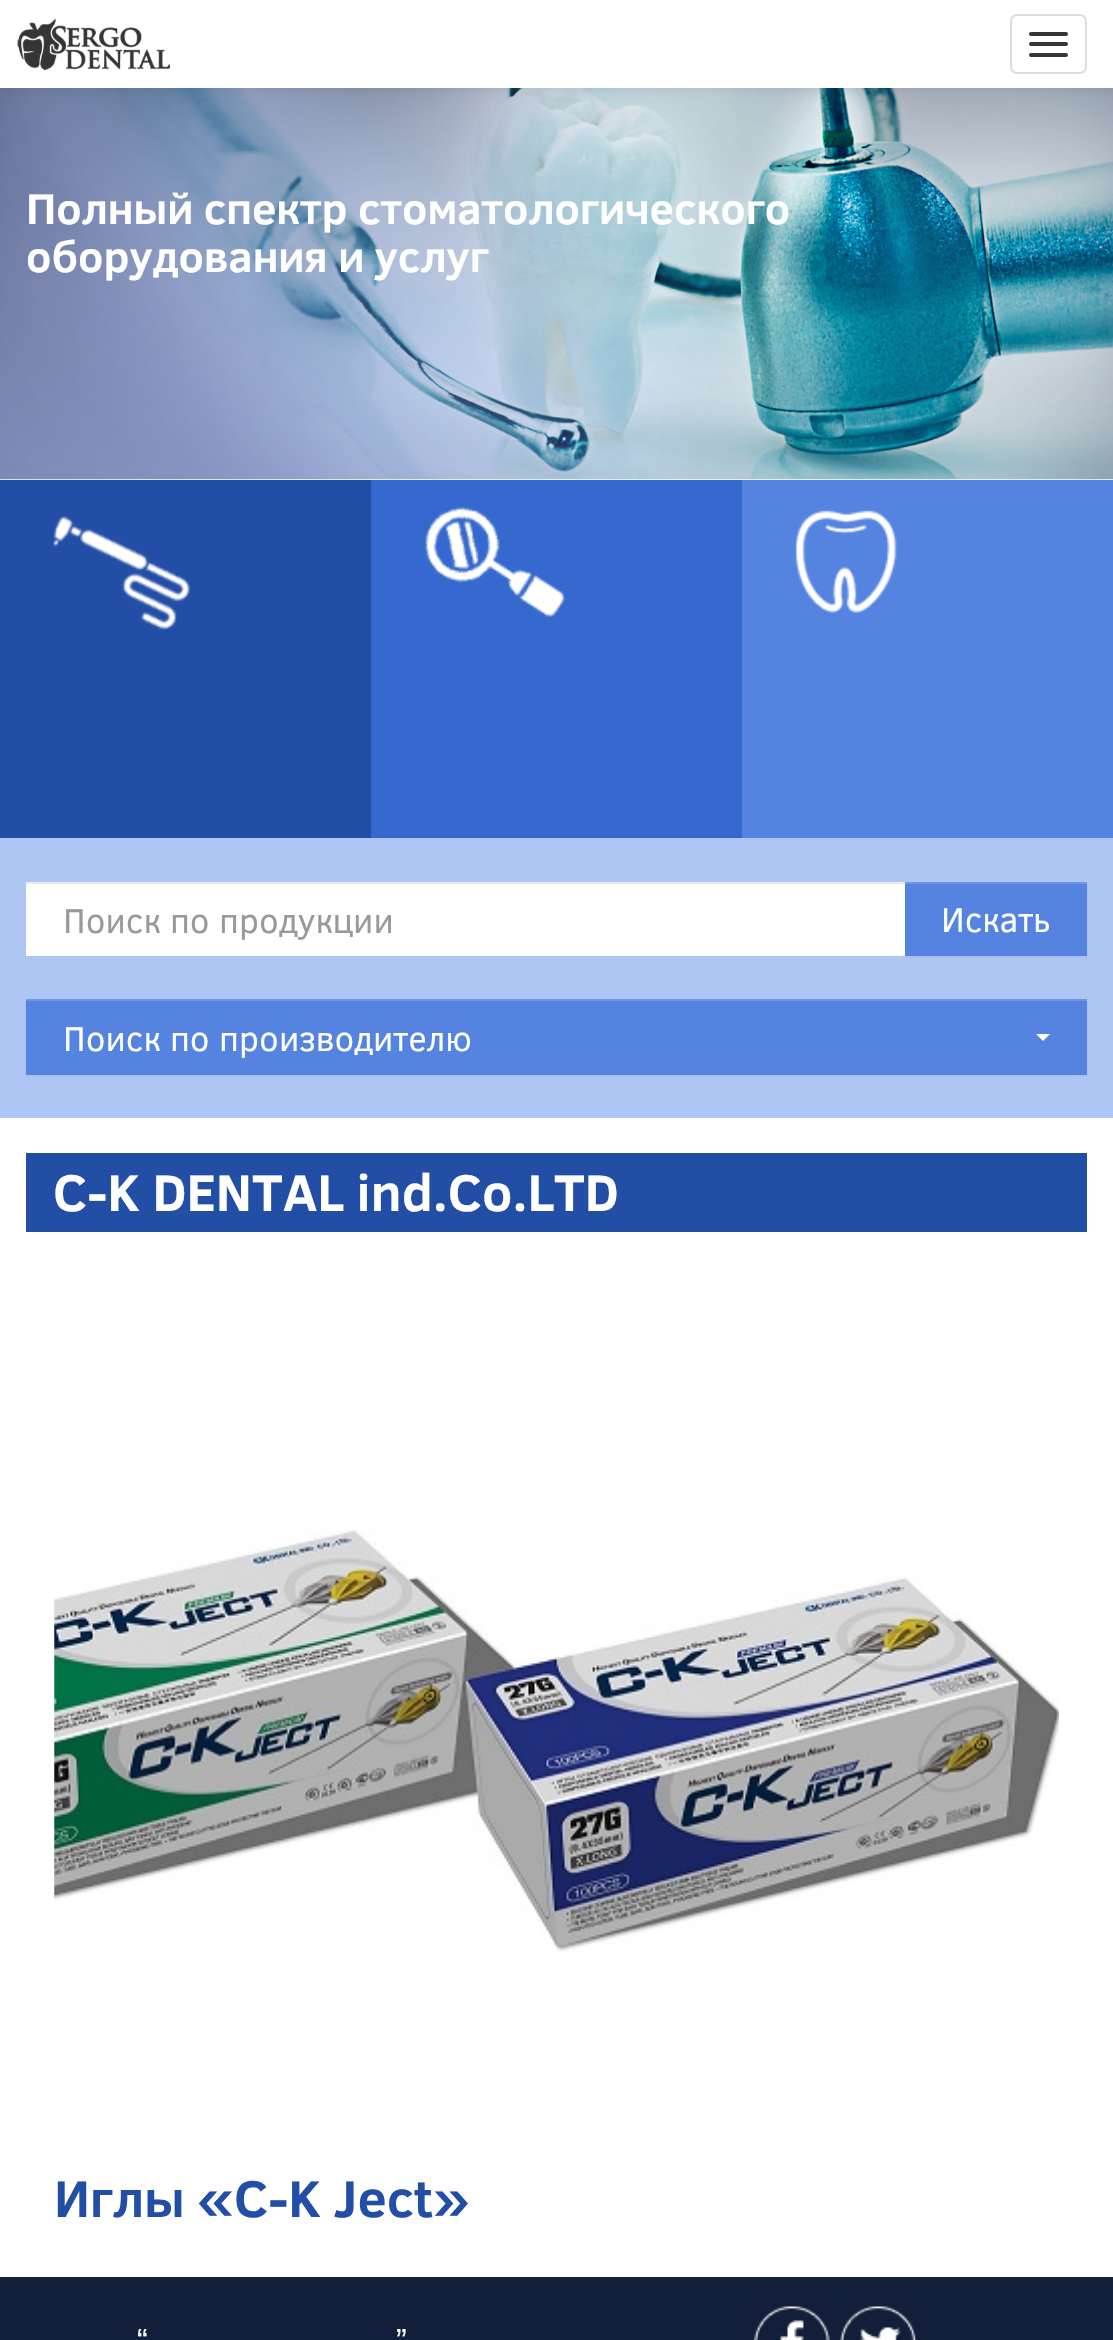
void draw(SkCanvas* canvas) {
    SkPaint paint;
    paint.setAntiAlias(true);
    canvas->clear(0xFFFFFFFF);
    canvas->drawImageRect(SkImages::DeferredFromEncodedData(SkData::MakeFromFileName("img2.png")), SkRect::MakeXYWH(0, 88, 1113, 392), SkSamplingOptions());
    paint.setColor(0x12000000);
    paint.setMaskFilter(SkMaskFilter::MakeBlur(kNormal_SkBlurStyle, 4.5f));
    canvas->drawRect(SkRect::MakeXYWH(0, 2, 1113, 87), paint);
    paint.setMaskFilter(nullptr);
    paint.setColor(0xFFFFFFFF);
    canvas->drawRect(SkRect::MakeXYWH(0, 0, 1113, 88), paint);
    canvas->drawImageRect(SkImages::DeferredFromEncodedData(SkData::MakeFromFileName("img1.png")), SkRect::MakeXYWH(17, 18, 153, 52), SkSamplingOptions());
    paint.setStyle(SkPaint::kStroke_Style);
    paint.setStrokeWidth(2);
    paint.setColor(0xFFDDDDDD);
    canvas->drawRoundRect(SkRect::MakeXYWH(1011, 15, 75, 58), 6, 6, paint);
    paint.setStyle(SkPaint::kFill_Style);
    paint.setColor(0xFF353535);
    canvas->drawRoundRect(SkRect::MakeXYWH(1029, 32, 39, 4), 2, 2, paint);
    canvas->drawRoundRect(SkRect::MakeXYWH(1029, 42, 39, 4), 2, 2, paint);
    canvas->drawRoundRect(SkRect::MakeXYWH(1029, 53, 39, 4), 2, 2, paint);
    SkFont font1(fontMgr->matchFamilyStyle("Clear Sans", SkFontStyle::Bold()), 43.75f);
    font1.setSubpixel(true);
    paint.setColor(0xFFFFFFFF);
    canvas->drawString("Полный спектр стоматологического", 26, 224, font1, paint);
    canvas->drawString("оборудования и услуг", 26, 272, font1, paint);
    paint.setColor(0xFF234EA6);
    canvas->drawRect(SkRect::MakeXYWH(0, 480, 371, 358), paint);
    canvas->drawImageRect(SkImages::DeferredFromEncodedData(SkData::MakeFromFileName("img3.png")), SkRect::MakeXYWH(52, 516, 139, 114), SkSamplingOptions());
    paint.setColor(0xFF3669CF);
    canvas->drawRect(SkRect::MakeXYWH(371, 480, 371, 358), paint);
    canvas->drawImageRect(SkImages::DeferredFromEncodedData(SkData::MakeFromFileName("img4.png")), SkRect::MakeXYWH(425, 507, 141, 111), SkSamplingOptions());
    paint.setColor(0xFF5583E0);
    canvas->drawRect(SkRect::MakeXYWH(742, 480, 371, 358), paint);
    canvas->drawImageRect(SkImages::DeferredFromEncodedData(SkData::MakeFromFileName("img5.png")), SkRect::MakeXYWH(795, 510, 102, 103), SkSamplingOptions());
    paint.setColor(0xFFAFC6F5);
    canvas->drawRect(SkRect::MakeXYWH(0, 838, 1113, 280), paint);
    paint.setColor(0xFFFFFFFF);
    canvas->drawRect(SkRect::MakeXYWH(26, 884, 879, 72), paint);
    paint.setColor(0xFFECECEC);
    canvas->drawRect(SkRect::MakeXYWH(26, 882, 879, 2), paint);
    SkFont font2(fontMgr->matchFamilyStyle("Clear Sans", SkFontStyle::Normal()), 35);
    font2.setSubpixel(true);
    paint.setColor(0xFF999999);
    canvas->drawString("Поиск по продукции", 63, 933, font2, paint);
    paint.setColor(0x12000000);
    paint.setMaskFilter(SkMaskFilter::MakeBlur(kNormal_SkBlurStyle, 1));
    canvas->drawRect(SkRect::MakeXYWH(905, 884, 182, 73), paint);
    paint.setMaskFilter(nullptr);
    paint.setColor(0xFF5583E0);
    canvas->drawRect(SkRect::MakeXYWH(905, 884, 182, 72), paint);
    paint.setColor(0xFF6F96E5);
    canvas->drawRect(SkRect::MakeXYWH(905, 882, 182, 2), paint);
    paint.setColor(0xFFFFFFFF);
    canvas->drawString("Искать", 941, 932, font2, paint);
    paint.setColor(0x12000000);
    paint.setMaskFilter(SkMaskFilter::MakeBlur(kNormal_SkBlurStyle, 1));
    canvas->drawRect(SkRect::MakeXYWH(26, 1001, 1061, 75), paint);
    paint.setMaskFilter(nullptr);
    paint.setColor(0xFF5583E0);
    canvas->drawRect(SkRect::MakeXYWH(26, 1001, 1061, 74), paint);
    paint.setColor(0xFF6F96E5);
    canvas->drawRect(SkRect::MakeXYWH(26, 999, 1061, 2), paint);
    paint.setColor(0xFFFFFFFF);
    canvas->drawString("Поиск по производителю", 63, 1051, font2, paint);
    canvas->drawPath(SkPathBuilder().moveTo(1036, 1034).lineTo(1050, 1034).lineTo(1043, 1041).close().detach(), paint);
    paint.setColor(0xFF234EA6);
    canvas->drawRect(SkRect::MakeXYWH(26, 1153, 1061, 79), paint);
    SkFont font3(fontMgr->matchFamilyStyle("Clear Sans", SkFontStyle::Bold()), 52.5f);
    font3.setSubpixel(true);
    paint.setColor(0xFFFFFFFF);
    canvas->drawString("C-K DENTAL ind.Co.LTD", 53, 1211, font3, paint);
    canvas->drawImageRect(SkImages::DeferredFromEncodedData(SkData::MakeFromFileName("img6.png")), SkRect::MakeXYWH(54, 1529, 1005, 423), SkSamplingOptions());
    paint.setColor(0xFF234EA6);
    canvas->drawString("Иглы «C-K Ject»", 54, 2217, font3, paint);
    paint.setColor(0xFF131E3A);
    canvas->drawRect(SkRect::MakeXYWH(0, 2277, 1113, 63), paint);
    SkFont font4(fontMgr->matchFamilyStyle("Liberation Sans", SkFontStyle::Normal()), 32);
    font4.setSubpixel(true);
    paint.setColor(0xFFFFFFFF);
    canvas->drawString("“", 137, 2351, font4, paint);
    canvas->drawString("”", 396, 2351, font4, paint);
    canvas->drawImageRect(SkImages::DeferredFromEncodedData(SkData::MakeFromFileName("img7.png")), SkRect::MakeXYWH(754, 2306, 76, 34), SkSamplingOptions());
    canvas->drawImageRect(SkImages::DeferredFromEncodedData(SkData::MakeFromFileName("img8.png")), SkRect::MakeXYWH(840, 2306, 76, 34), SkSamplingOptions());
}
